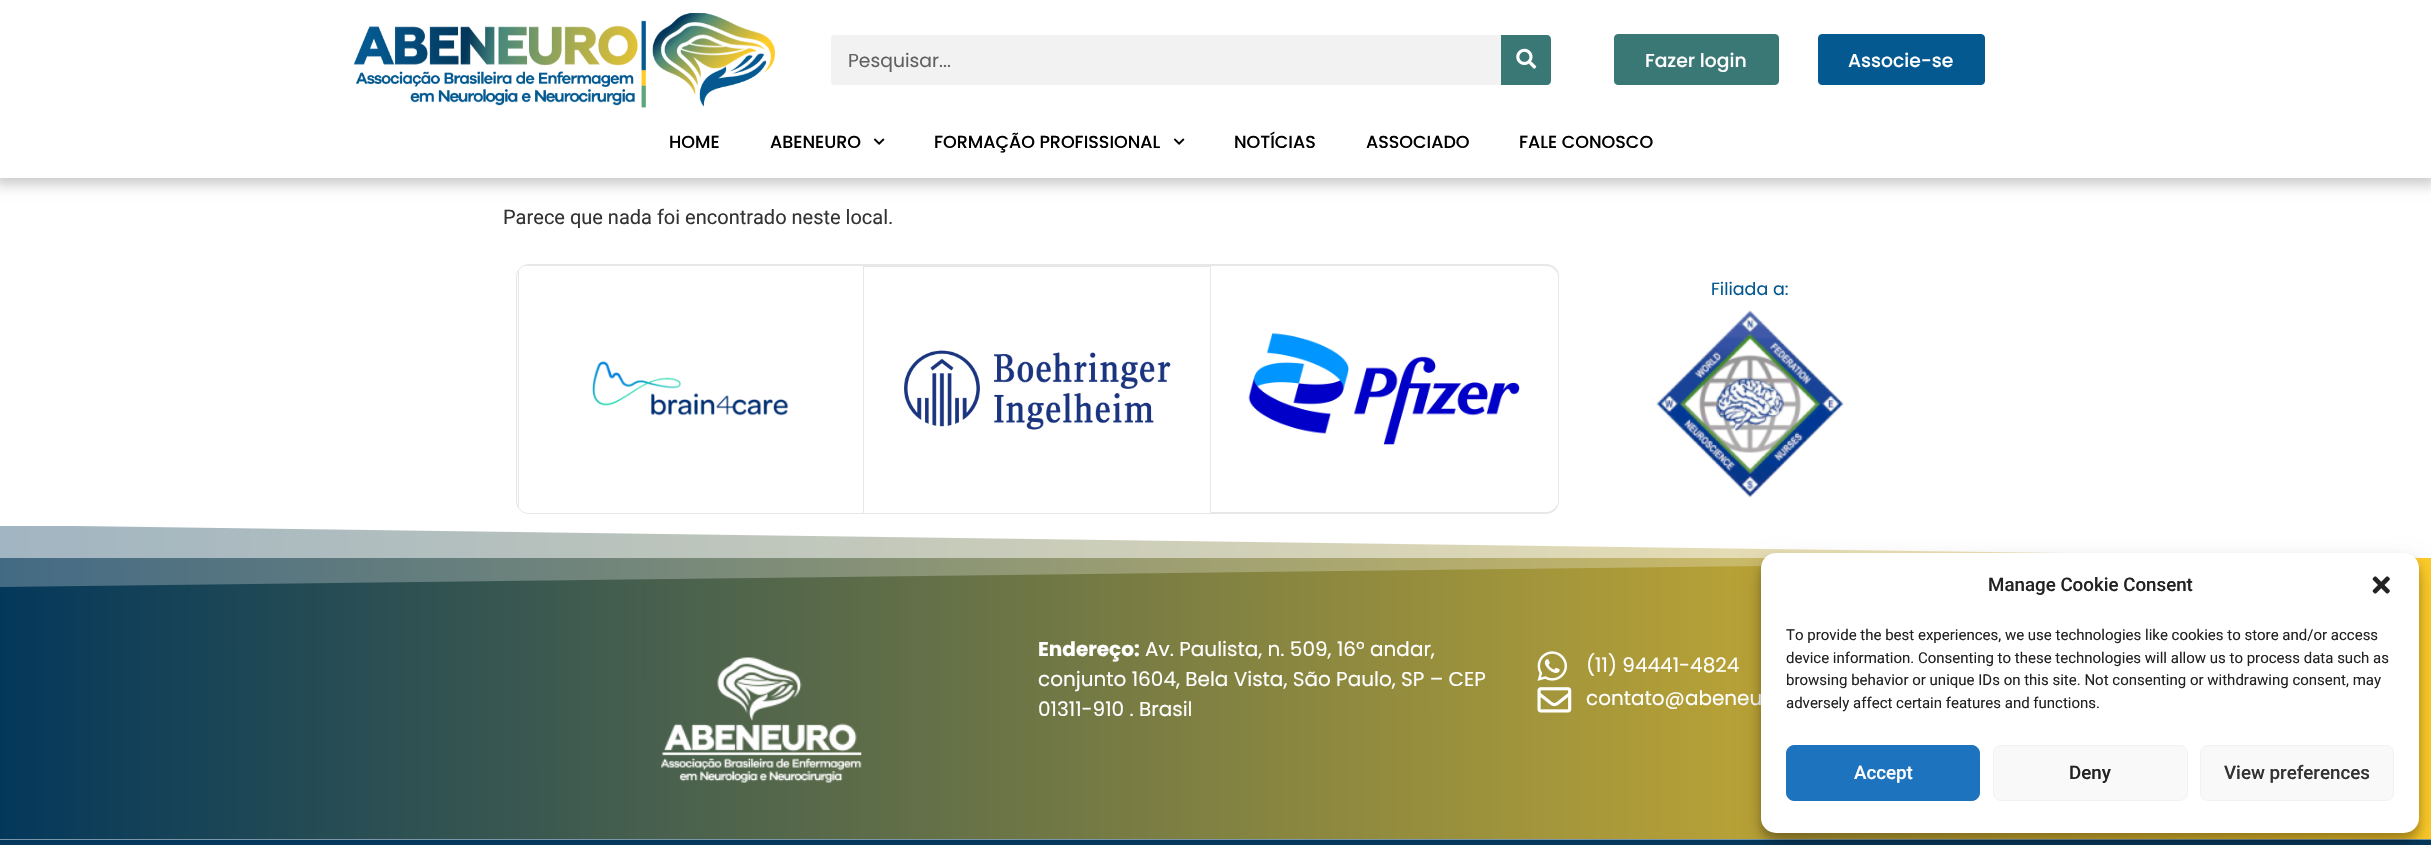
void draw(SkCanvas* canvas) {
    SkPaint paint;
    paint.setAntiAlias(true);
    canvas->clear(0xFFFFFFFF);
    paint.setColor(0x33000000);
    paint.setMaskFilter(SkMaskFilter::MakeBlur(kNormal_SkBlurStyle, 6));
    canvas->drawRect(SkRect::MakeXYWH(-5, -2, 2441, 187), paint);
    paint.setMaskFilter(nullptr);
    paint.setColor(0xFFFFFFFF);
    canvas->drawRect(SkRect::MakeXYWH(0, 0, 2431, 178), paint);
    canvas->drawImageRect(SkImages::DeferredFromEncodedData(SkData::MakeFromFileName("img1.png")), SkRect::MakeXYWH(354, 13, 421, 95), SkSamplingOptions());
    paint.setColor(0xFFF2F2F2);
    canvas->drawRoundRect(SkRect::MakeXYWH(831, 35, 720, 50), 4, 4, paint);
    SkFont font1(fontMgr->matchFamilyStyle("Poppins", SkFontStyle::Normal()), 18.75f);
    font1.setSubpixel(true);
    paint.setColor(0xFF616161);
    canvas->drawString("Pesquisar...", 848, 67, font1, paint);
    paint.setColor(0xFF3A7875);
    canvas->drawPath(SkPathBuilder().moveTo(1501, 35).lineTo(1547, 35).cubicTo(1549, 35, 1551, 37, 1551, 39).lineTo(1551, 81).cubicTo(1551, 83, 1549, 85, 1547, 85).lineTo(1501, 85).close().detach(), paint);
    canvas->drawImageRect(SkImages::DeferredFromEncodedData(SkData::MakeFromFileName("img2.png")), SkRect::MakeXYWH(1516, 48, 21, 21), SkSamplingOptions());
    canvas->drawRoundRect(SkRect::MakeXYWH(1614.5f, 34.5f, 164, 50), 3.5f, 3.5f, paint);
    paint.setStyle(SkPaint::kStroke_Style);
    paint.setStrokeWidth(1);
    canvas->drawRoundRect(SkRect::MakeXYWH(1614.5f, 34.5f, 164, 50), 3.5f, 3.5f, paint);
    SkFont font2(fontMgr->matchFamilyStyle("Poppins", SkFontStyle(500, SkFontStyle::kNormal_Width, SkFontStyle::kUpright_Slant)), 18.75f);
    font2.setSubpixel(true);
    paint.setStyle(SkPaint::kFill_Style);
    paint.setColor(0xFFFFFFFF);
    canvas->drawString("Fazer login", 1645, 67, font2, paint);
    paint.setColor(0xFF045990);
    canvas->drawRoundRect(SkRect::MakeXYWH(1818.5f, 34.5f, 166, 50), 3.5f, 3.5f, paint);
    paint.setStyle(SkPaint::kStroke_Style);
    canvas->drawRoundRect(SkRect::MakeXYWH(1818.5f, 34.5f, 166, 50), 3.5f, 3.5f, paint);
    paint.setStyle(SkPaint::kFill_Style);
    paint.setColor(0xFFFFFFFF);
    canvas->drawString("Associe-se", 1848, 67, font2, paint);
    SkFont font3(fontMgr->matchFamilyStyle("Poppins", SkFontStyle(500, SkFontStyle::kNormal_Width, SkFontStyle::kUpright_Slant)), 17.5f);
    font3.setSubpixel(true);
    paint.setColor(0xFF000000);
    canvas->drawString("HOME", 669, 148, font3, paint);
    canvas->drawString("ABENEURO", 770, 148, font3, paint);
    canvas->drawImageRect(SkImages::DeferredFromEncodedData(SkData::MakeFromFileName("img3.png")), SkRect::MakeXYWH(873, 138, 12, 7), SkSamplingOptions());
    canvas->drawString("FORMAÇÃO PROFISSIONAL", 934, 148, font3, paint);
    canvas->drawImageRect(SkImages::DeferredFromEncodedData(SkData::MakeFromFileName("img3.png")), SkRect::MakeXYWH(1173, 138, 12, 7), SkSamplingOptions());
    canvas->drawString("NOTÍCIAS", 1234, 148, font3, paint);
    canvas->drawString("ASSOCIADO", 1366, 148, font3, paint);
    canvas->drawString("FALE CONOSCO", 1519, 148, font3, paint);
    SkFont font4(fontMgr->matchFamilyStyle("Roboto", SkFontStyle::Normal()), 20);
    font4.setSubpixel(true);
    paint.setColor(0xFF333333);
    canvas->drawString("Parece que nada foi encontrado neste local.", 503, 224, font4, paint);
    paint.setStyle(SkPaint::kStroke_Style);
    paint.setColor(0xFFE7E7E7);
    canvas->drawPath(SkPathBuilder().moveTo(529, 264.5f).lineTo(863.5f, 264.5f).lineTo(863.5f, 513.5f).lineTo(529, 513.5f).cubicTo(522, 513.5f, 516.5f, 508, 516.5f, 501).lineTo(516.5f, 277).cubicTo(516.5f, 270, 522, 264.5f, 529, 264.5f).close().detach(), paint);
    paint.setStyle(SkPaint::kFill_Style);
    canvas->drawRect(SkRect::MakeXYWH(523, 265, 341, 1), paint);
    canvas->drawRect(SkRect::MakeXYWH(518, 270, 1, 238), paint);
    canvas->drawImageRect(SkImages::DeferredFromEncodedData(SkData::MakeFromFileName("img4.png")), SkRect::MakeXYWH(592, 361, 197, 55), SkSamplingOptions());
    canvas->drawRect(SkRect::MakeXYWH(864, 264, 347, 3), paint);
    canvas->drawRect(SkRect::MakeXYWH(1210, 264, 1, 250), paint);
    canvas->drawRect(SkRect::MakeXYWH(864, 513, 347, 1), paint);
    canvas->drawImageRect(SkImages::DeferredFromEncodedData(SkData::MakeFromFileName("img5.png")), SkRect::MakeXYWH(904, 350, 267, 80), SkSamplingOptions());
    canvas->drawPath(SkPathBuilder(SkPathFillType::kEvenOdd).moveTo(1211, 264).lineTo(1546, 264).cubicTo(1553, 264, 1559, 269, 1559, 276).lineTo(1559, 501).cubicTo(1559, 508, 1553, 514, 1546, 514).lineTo(1211, 514).close().moveTo(1211, 266).lineTo(1546, 266).cubicTo(1552, 266, 1558, 271, 1558, 276).lineTo(1558, 501).cubicTo(1558, 507, 1552, 512, 1546, 512).lineTo(1211, 512).close().detach(), paint);
    canvas->drawImageRect(SkImages::DeferredFromEncodedData(SkData::MakeFromFileName("img6.png")), SkRect::MakeXYWH(1248, 333, 272, 112), SkSamplingOptions());
    SkFont font5(fontMgr->matchFamilyStyle("Poppins", SkFontStyle::Normal()), 17.5f);
    font5.setSubpixel(true);
    paint.setColor(0xFF045990);
    canvas->drawString("Filiada a:", 1711, 295, font5, paint);
    canvas->drawImageRect(SkImages::DeferredFromEncodedData(SkData::MakeFromFileName("img7.png")), SkRect::MakeXYWH(1656, 310, 188, 188), SkSamplingOptions());
    {
        const SkColor colors[] = {0xFF04385B, 0xFFFECB28};
        const float stops[] = {0, 1};
        const SkPoint ends[] = {{0, 683}, {2431, 682}};
        paint.setShader(SkGradientShader::MakeLinear(ends, colors, stops, 2, SkTileMode::kClamp));
        paint.setAlpha(255);
    }
    canvas->drawRect(SkRect::MakeXYWH(0, 558, 2431, 281), paint);
    {
        const SkColor colors[] = {0xFF829CAD, 0xFFFFE594};
        const float stops[] = {0, 1};
        const SkPoint ends[] = {{0, 683}, {2431, 682}};
        paint.setShader(SkGradientShader::MakeLinear(ends, colors, stops, 2, SkTileMode::kClamp));
        paint.setAlpha(255);
    }
    canvas->drawRect(SkRect::MakeXYWH(0, 526, 2431, 32), paint);
    paint.setShader(nullptr);
    paint.setColor(0xFFFFFFFF);
    canvas->drawPath(SkPathBuilder().moveTo(0, 525).lineTo(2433, 525).lineTo(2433, 558).close().detach(), paint);
    paint.setColor(0x40FFFFFF);
    canvas->drawPath(SkPathBuilder().moveTo(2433, 525).lineTo(0, 525).lineTo(0, 587).lineTo(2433, 558).close().detach(), paint);
    canvas->drawImageRect(SkImages::DeferredFromEncodedData(SkData::MakeFromFileName("img8.png")), SkRect::MakeXYWH(661, 657, 201, 126), SkSamplingOptions());
    SkFont font6(fontMgr->matchFamilyStyle("Poppins", SkFontStyle::Bold()), 20);
    font6.setSubpixel(true);
    paint.setColor(0xFFFFFFFF);
    canvas->drawString("Endereço:", 1038, 656, font6, paint);
    SkFont font7(fontMgr->matchFamilyStyle("Poppins", SkFontStyle::Normal()), 20);
    font7.setSubpixel(true);
    canvas->drawString("Av. Paulista, n. 509, 16º andar,", 1145, 656, font7, paint);
    canvas->drawString("conjunto 1604, Bela Vista, São Paulo, SP – CEP", 1038, 686, font7, paint);
    canvas->drawString("01311-910 . Brasil", 1038, 716, font7, paint);
    canvas->drawImageRect(SkImages::DeferredFromEncodedData(SkData::MakeFromFileName("img9.png")), SkRect::MakeXYWH(1537, 651, 30, 30), SkSamplingOptions());
    canvas->drawString("(11) 94441-4824", 1586, 672, font7, paint);
    canvas->drawImageRect(SkImages::DeferredFromEncodedData(SkData::MakeFromFileName("img10.png")), SkRect::MakeXYWH(1537, 687, 35, 26), SkSamplingOptions());
    canvas->drawString("contato@abeneu", 1586, 705, font7, paint);
    paint.setColor(0xFF04385B);
    canvas->drawRect(SkRect::MakeXYWH(0, 840, 2431, 5), paint);
    paint.setColor(0xFF7A96A8);
    canvas->drawRect(SkRect::MakeXYWH(0, 839, 2431, 1), paint);
    paint.setColor(0x3B000000);
    paint.setMaskFilter(SkMaskFilter::MakeBlur(kNormal_SkBlurStyle, 4));
    canvas->drawRoundRect(SkRect::MakeXYWH(1761, 560, 658, 280), 15, 15, paint);
    paint.setMaskFilter(nullptr);
    paint.setColor(0x30000000);
    paint.setMaskFilter(SkMaskFilter::MakeBlur(kNormal_SkBlurStyle, 12.5f));
    canvas->drawRoundRect(SkRect::MakeXYWH(1761, 565, 658, 280), 15, 15, paint);
    paint.setMaskFilter(nullptr);
    paint.setColor(0xFFFFFFFF);
    canvas->drawRoundRect(SkRect::MakeXYWH(1761, 553, 658, 280), 15, 15, paint);
    SkFont font8(fontMgr->matchFamilyStyle("Roboto", SkFontStyle(500, SkFontStyle::kNormal_Width, SkFontStyle::kUpright_Slant)), 18.75f);
    font8.setSubpixel(true);
    paint.setColor(0xFF222222);
    canvas->drawString("Manage Cookie Consent", 1988, 591, font8, paint);
    canvas->drawImageRect(SkImages::DeferredFromEncodedData(SkData::MakeFromFileName("img11.png")), SkRect::MakeXYWH(2372, 576, 18, 18), SkSamplingOptions());
    SkFont font9(fontMgr->matchFamilyStyle("Roboto", SkFontStyle::Normal()), 15);
    font9.setSubpixel(true);
    canvas->drawString("To provide the best experiences, we use technologies like cookies to store and/or access", 1786, 640, font9, paint);
    canvas->drawString("device information. Consenting to these technologies will allow us to process data such as", 1786, 663, font9, paint);
    canvas->drawString("browsing behavior or unique IDs on this site. Not consenting or withdrawing consent, may", 1786, 685, font9, paint);
    canvas->drawString("adversely affect certain features and functions.", 1786, 708, font9, paint);
    paint.setColor(0xFF1E73BE);
    canvas->drawRoundRect(SkRect::MakeXYWH(1786.5f, 745.5f, 193, 55), 7.5f, 7.5f, paint);
    paint.setStyle(SkPaint::kStroke_Style);
    canvas->drawRoundRect(SkRect::MakeXYWH(1786.5f, 745.5f, 193, 55), 7.5f, 7.5f, paint);
    paint.setStyle(SkPaint::kFill_Style);
    paint.setColor(0xFFFFFFFF);
    canvas->drawString("Accept", 1854, 779, font8, paint);
    paint.setColor(0xFFF9F9F9);
    canvas->drawRoundRect(SkRect::MakeXYWH(1993.5f, 745.5f, 194, 55), 7.5f, 7.5f, paint);
    paint.setStyle(SkPaint::kStroke_Style);
    paint.setColor(0xFFF2F2F2);
    canvas->drawRoundRect(SkRect::MakeXYWH(1993.5f, 745.5f, 194, 55), 7.5f, 7.5f, paint);
    paint.setStyle(SkPaint::kFill_Style);
    paint.setColor(0xFF222222);
    canvas->drawString("Deny", 2069, 779, font8, paint);
    paint.setColor(0xFFF9F9F9);
    canvas->drawRoundRect(SkRect::MakeXYWH(2200.5f, 745.5f, 193, 55), 7.5f, 7.5f, paint);
    paint.setStyle(SkPaint::kStroke_Style);
    paint.setColor(0xFFF2F2F2);
    canvas->drawRoundRect(SkRect::MakeXYWH(2200.5f, 745.5f, 193, 55), 7.5f, 7.5f, paint);
    paint.setStyle(SkPaint::kFill_Style);
    paint.setColor(0xFF333333);
    canvas->drawString("View preferences", 2224, 779, font8, paint);
}
